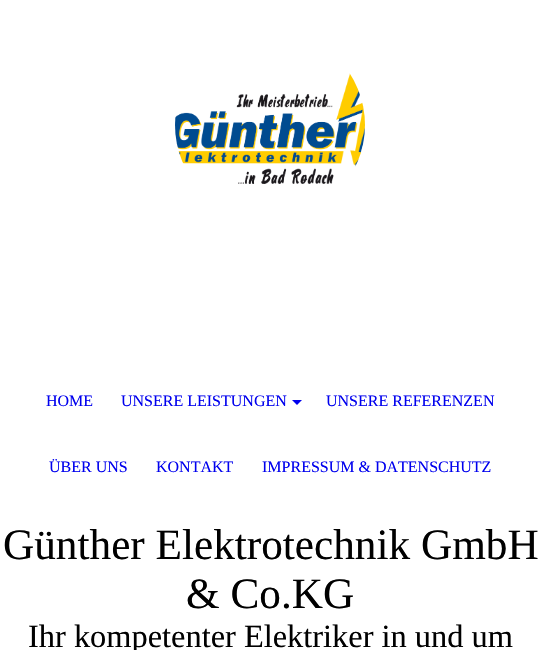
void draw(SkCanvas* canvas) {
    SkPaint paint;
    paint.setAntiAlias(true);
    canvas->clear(0xFFFFFFFF);
    canvas->drawImageRect(SkImages::DeferredFromEncodedData(SkData::MakeFromFileName("img1.png")), SkRect::MakeXYWH(175, 73, 190, 111), SkSamplingOptions());
    SkFont font1(fontMgr->matchFamilyStyle("Liberation Serif", SkFontStyle::Normal()), 16);
    font1.setSubpixel(true);
    paint.setColor(0xFF0000EE);
    canvas->drawString("HOME", 46, 406, font1, paint);
    canvas->drawString("UNSERE LEISTUNGEN", 121, 406, font1, paint);
    canvas->drawPath(SkPathBuilder().moveTo(292, 400).lineTo(302, 400).lineTo(297, 405).close().detach(), paint);
    canvas->drawString("UNSERE REFERENZEN", 326, 406, font1, paint);
    canvas->drawString("ÜBER UNS", 49, 472, font1, paint);
    canvas->drawString("KONTAKT", 156, 472, font1, paint);
    canvas->drawString("IMPRESSUM & DATENSCHUTZ", 262, 472, font1, paint);
    SkFont font2(fontMgr->matchFamilyStyle("Liberation Serif", SkFontStyle::Normal()), 43.25f);
    font2.setSubpixel(true);
    paint.setColor(0xFF000000);
    canvas->drawString("Günther Elektrotechnik GmbH", 3, 559, font2, paint);
    canvas->drawString("& Co.KG", 186, 608, font2, paint);
    SkFont font3(fontMgr->matchFamilyStyle("Liberation Serif", SkFontStyle::Normal()), 32.4f);
    font3.setSubpixel(true);
    canvas->drawString("Ihr kompetenter Elektriker in und um", 28, 647, font3, paint);
}
